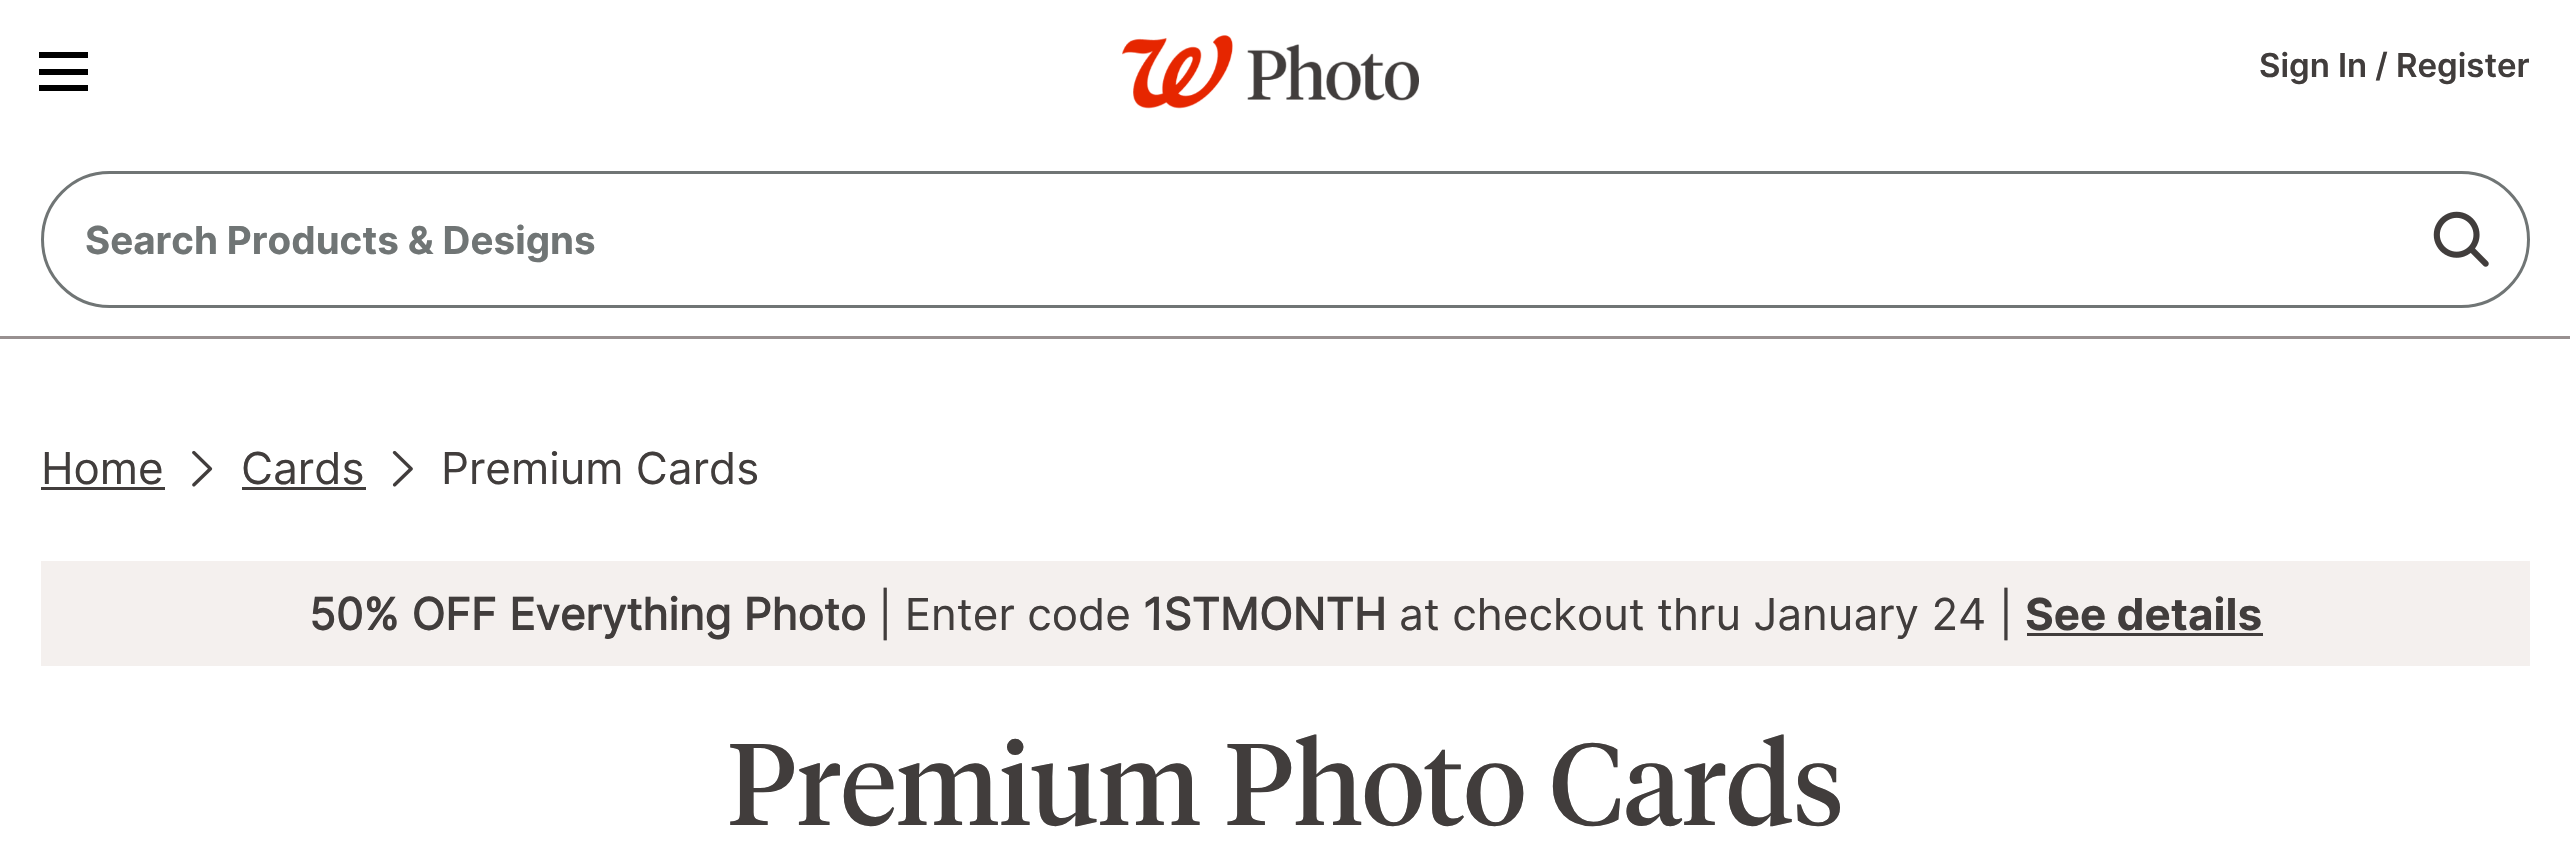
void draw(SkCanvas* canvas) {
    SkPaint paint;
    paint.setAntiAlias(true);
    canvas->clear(0xFFFFFFFF);
    paint.setColor(0xFF000000);
    canvas->drawRect(SkRect::MakeXYWH(39, 85, 49, 6), paint);
    canvas->drawRect(SkRect::MakeXYWH(39, 69, 49, 6), paint);
    canvas->drawRect(SkRect::MakeXYWH(39, 52, 49, 6), paint);
    canvas->drawImageRect(SkImages::DeferredFromEncodedData(SkData::MakeFromFileName("img1.png")), SkRect::MakeXYWH(1122, 35, 297, 74), SkSamplingOptions());
    SkFont font1(fontMgr->matchFamilyStyle("Inter", SkFontStyle(600, SkFontStyle::kNormal_Width, SkFontStyle::kUpright_Slant)), 33);
    font1.setSubpixel(true);
    paint.setColor(0xFF413D3C);
    canvas->drawString("Sign In / Register", 2259, 77, font1, paint);
    paint.setColor(0xFF989090);
    canvas->drawRect(SkRect::MakeXYWH(0, 336, 2570, 3), paint);
    paint.setStyle(SkPaint::kStroke_Style);
    paint.setStrokeWidth(3);
    paint.setColor(0xFF707575);
    canvas->drawRoundRect(SkRect::MakeXYWH(42.5f, 172.5f, 2486, 134), 67, 67, paint);
    SkFont font2(fontMgr->matchFamilyStyle("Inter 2", SkFontStyle::Bold()), 38.5f);
    font2.setSubpixel(true);
    paint.setStyle(SkPaint::kFill_Style);
    canvas->drawString("Search Products & Designs", 85, 254, font2, paint);
    canvas->drawImageRect(SkImages::DeferredFromEncodedData(SkData::MakeFromFileName("img2.png")), SkRect::MakeXYWH(2433, 211, 56, 56), SkSamplingOptions());
    SkFont font3(fontMgr->matchFamilyStyle("Inter", SkFontStyle::Normal()), 44);
    font3.setSubpixel(true);
    paint.setColor(0xFF413D3C);
    canvas->drawString("Home", 41, 484, font3, paint);
    canvas->drawRect(SkRect::MakeXYWH(41, 487, 124, 3), paint);
    canvas->drawImageRect(SkImages::DeferredFromEncodedData(SkData::MakeFromFileName("img3.png")), SkRect::MakeXYWH(192, 450, 21, 37), SkSamplingOptions());
    canvas->drawString("Cards", 241, 484, font3, paint);
    canvas->drawRect(SkRect::MakeXYWH(242, 487, 124, 3), paint);
    canvas->drawImageRect(SkImages::DeferredFromEncodedData(SkData::MakeFromFileName("img4.png")), SkRect::MakeXYWH(392, 450, 21, 37), SkSamplingOptions());
    canvas->drawString("Premium Cards", 441, 484, font3, paint);
    paint.setColor(0xFFF4F0EE);
    canvas->drawRect(SkRect::MakeXYWH(41, 561, 2489, 105), paint);
    SkFont font4(fontMgr->matchFamilyStyle("Inter", SkFontStyle::Bold()), 44);
    font4.setSubpixel(true);
    paint.setColor(0xFF413D3C);
    canvas->drawString("50% OFF Everything Photo", 309, 630, font4, paint);
    canvas->drawString("| Enter code", 878, 630, font3, paint);
    canvas->drawString("1STMONTH", 1143, 630, font4, paint);
    canvas->drawString("at checkout thru January 24 |", 1399, 630, font3, paint);
    SkFont font5(fontMgr->matchFamilyStyle("Inter 2", SkFontStyle::Bold()), 44);
    font5.setSubpixel(true);
    canvas->drawString("See details", 2025, 630, font5, paint);
    canvas->drawRect(SkRect::MakeXYWH(2027, 633, 236, 3), paint);
    SkFont font6(fontMgr->matchFamilyStyle("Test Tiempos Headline", SkFontStyle::Normal()), 115.5f);
    font6.setSubpixel(true);
    canvas->drawString("Premium Photo Cards", 727, 825, font6, paint);
}
